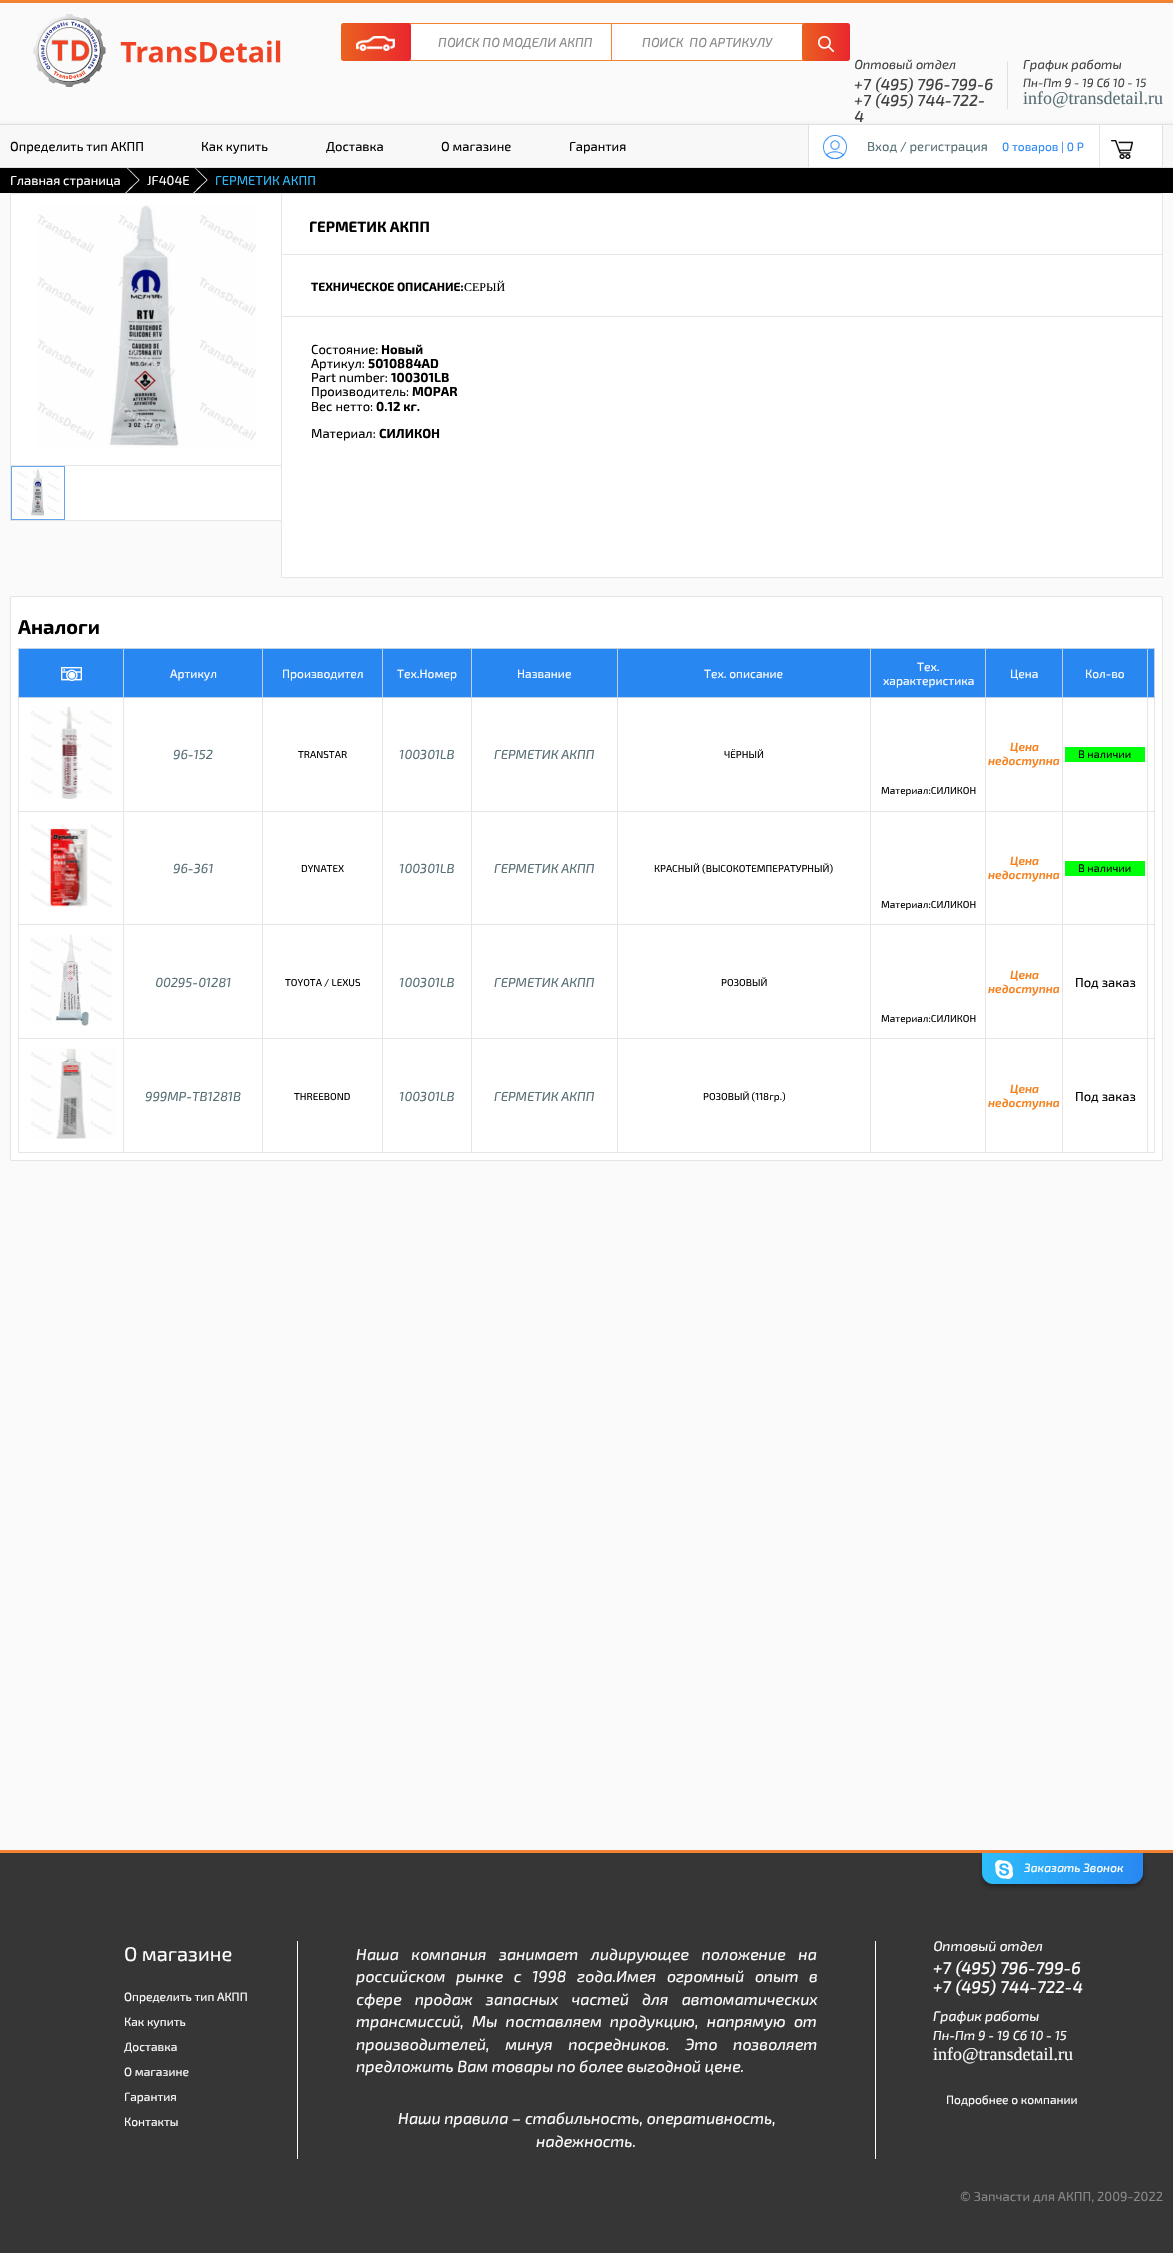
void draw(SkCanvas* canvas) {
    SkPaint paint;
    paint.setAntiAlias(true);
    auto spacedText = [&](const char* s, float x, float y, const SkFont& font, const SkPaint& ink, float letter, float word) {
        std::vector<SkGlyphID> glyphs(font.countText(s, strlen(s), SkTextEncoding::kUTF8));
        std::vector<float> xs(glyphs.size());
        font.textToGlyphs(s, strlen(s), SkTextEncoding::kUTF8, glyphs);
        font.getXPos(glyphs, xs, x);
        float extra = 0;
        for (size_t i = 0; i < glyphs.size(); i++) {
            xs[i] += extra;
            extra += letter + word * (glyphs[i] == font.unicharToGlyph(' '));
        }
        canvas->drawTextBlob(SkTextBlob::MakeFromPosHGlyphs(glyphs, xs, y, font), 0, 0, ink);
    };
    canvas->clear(0xFFFAFAFA);
    paint.setColor(0xFFF38231);
    canvas->drawRect(SkRect::MakeXYWH(0, 0, 1173, 3), paint);
    canvas->drawImageRect(SkImages::DeferredFromEncodedData(SkData::MakeFromFileName("img1.png")), SkRect::MakeXYWH(33, 14, 248, 73), SkSamplingOptions());
    paint.setStyle(SkPaint::kStroke_Style);
    paint.setStrokeWidth(1);
    canvas->drawRoundRect(SkRect::MakeXYWH(341.5f, 23.5f, 508, 37), 2.5f, 2.5f, paint);
    paint.setStyle(SkPaint::kFill_Style);
    canvas->drawRect(SkRect::MakeXYWH(611, 24, 1, 36), paint);
    paint.setColor(0xFFFFFFFF);
    canvas->drawRect(SkRect::MakeXYWH(410, 24, 201, 36), paint);
    {
        const SkColor colors[] = {0xFFEA6220, 0xFFEA262D};
        const float stops[] = {0, 1};
        const SkPoint ends[] = {{341, 42}, {411, 42}};
        paint.setShader(SkGradientShader::MakeLinear(ends, colors, stops, 2, SkTileMode::kClamp));
        paint.setAlpha(255);
    }
    canvas->drawRoundRect(SkRect::MakeXYWH(341, 23, 70, 38), 3, 3, paint);
    canvas->drawImageRect(SkImages::DeferredFromEncodedData(SkData::MakeFromFileName("img2.png")), SkRect::MakeXYWH(356, 36, 39, 15), SkSamplingOptions());
    SkFont font1(fontMgr->matchFamilyStyle("Exo 2", SkFontStyle::Italic()), 13);
    font1.setSubpixel(true);
    paint.setShader(nullptr);
    paint.setColor(0xFF898989);
    canvas->drawString("ПОИСК ПО МОДЕЛИ АКПП", 438, 47, font1, paint);
    paint.setColor(0xFFFFFFFF);
    canvas->drawRect(SkRect::MakeXYWH(616, 24, 187, 36), paint);
    paint.setColor(0xFF898989);
    canvas->drawString("ПОИСК  ПО АРТИКУЛУ", 642, 47, font1, paint);
    {
        const SkColor colors[] = {0xFFEA6220, 0xFFEA262D};
        const float stops[] = {0, 1};
        const SkPoint ends[] = {{802, 42}, {850, 42}};
        paint.setShader(SkGradientShader::MakeLinear(ends, colors, stops, 2, SkTileMode::kClamp));
        paint.setAlpha(255);
    }
    canvas->drawRoundRect(SkRect::MakeXYWH(802, 23, 48, 38), 3, 3, paint);
    canvas->drawImageRect(SkImages::DeferredFromEncodedData(SkData::MakeFromFileName("img3.png")), SkRect::MakeXYWH(818, 36, 16, 16), SkSamplingOptions());
    paint.setShader(nullptr);
    paint.setColor(0xFF404041);
    canvas->drawString("Оптовый отдел", 854, 69, font1, paint);
    SkFont font2(fontMgr->matchFamilyStyle("Exo 2", SkFontStyle(500, SkFontStyle::kNormal_Width, SkFontStyle::kItalic_Slant)), 16);
    font2.setSubpixel(true);
    canvas->drawString("+7 (495) 796-799-6", 854, 90, font2, paint);
    canvas->drawString("+7 (495) 744-722-", 854, 106, font2, paint);
    canvas->drawString("4", 854, 122, font2, paint);
    paint.setColor(0xFFE1E1E1);
    canvas->drawRect(SkRect::MakeXYWH(1007, 61, 1, 48), paint);
    paint.setColor(0xFF404041);
    canvas->drawString("График работы", 1023, 69, font1, paint);
    SkFont font3(fontMgr->matchFamilyStyle("Exo 2", SkFontStyle::Italic()), 12);
    font3.setSubpixel(true);
    canvas->drawString("Пн-Пт 9 - 19 Сб 10 - 15", 1023, 87, font3, paint);
    SkFont font4(fontMgr->matchFamilyStyle("Liberation Serif", SkFontStyle::Normal()), 18);
    font4.setSubpixel(true);
    paint.setColor(0xFF576E75);
    canvas->drawString("info@transdetail.ru", 1023, 104, font4, paint);
    paint.setColor(0xFF000000);
    canvas->drawRect(SkRect::MakeXYWH(0, 168, 1173, 25), paint);
    canvas->drawImageRect(SkImages::DeferredFromEncodedData(SkData::MakeFromFileName("img6.png")), SkRect::MakeXYWH(125, 168, 15, 25), SkSamplingOptions());
    canvas->drawImageRect(SkImages::DeferredFromEncodedData(SkData::MakeFromFileName("img6.png")), SkRect::MakeXYWH(193, 168, 15, 25), SkSamplingOptions());
    paint.setColor(0x59000000);
    paint.setMaskFilter(SkMaskFilter::MakeBlur(kNormal_SkBlurStyle, 2.5f));
    canvas->drawRect(SkRect::MakeXYWH(0, 127, 1173, 44), paint);
    paint.setMaskFilter(nullptr);
    paint.setColor(0xFFF8F8F8);
    canvas->drawRect(SkRect::MakeXYWH(0, 125, 1173, 42), paint);
    paint.setColor(0xFFE1E1E1);
    canvas->drawRect(SkRect::MakeXYWH(0, 124, 1173, 1), paint);
    canvas->drawRect(SkRect::MakeXYWH(0, 167, 1173, 1), paint);
    SkFont font5(fontMgr->matchFamilyStyle("Exo 2", SkFontStyle::Normal()), 13);
    font5.setSubpixel(true);
    paint.setColor(0xFF000000);
    canvas->drawString("Определить тип АКПП", 10, 151, font5, paint);
    canvas->drawString("Как купить", 201, 151, font5, paint);
    canvas->drawString("Доставка", 326, 151, font5, paint);
    canvas->drawString("О магазине", 441, 151, font5, paint);
    canvas->drawString("Гарантия", 569, 151, font5, paint);
    paint.setColor(0xFFFFFFFF);
    canvas->drawRect(SkRect::MakeXYWH(809, 125, 353, 42), paint);
    paint.setColor(0xFFE1E1E1);
    canvas->drawRect(SkRect::MakeXYWH(1162, 125, 1, 42), paint);
    canvas->drawRect(SkRect::MakeXYWH(808, 125, 1, 42), paint);
    canvas->drawImageRect(SkImages::DeferredFromEncodedData(SkData::MakeFromFileName("img4.png")), SkRect::MakeXYWH(823, 135, 24, 24), SkSamplingOptions());
    paint.setColor(0xFF576E75);
    canvas->drawString("Вход / регистрация", 867, 151, font5, paint);
    SkFont font6(fontMgr->matchFamilyStyle("Exo 2", SkFontStyle::Normal()), 12);
    font6.setSubpixel(true);
    paint.setColor(0xFF2987F2);
    canvas->drawString("0 товаров | 0 P", 1002, 151, font6, paint);
    paint.setColor(0xFFE1E3E6);
    canvas->drawRect(SkRect::MakeXYWH(1099, 125, 1, 42), paint);
    canvas->drawImageRect(SkImages::DeferredFromEncodedData(SkData::MakeFromFileName("img5.png")), SkRect::MakeXYWH(1111, 140, 22, 19), SkSamplingOptions());
    paint.setColor(0xFFFFFFFF);
    canvas->drawString("Главная страница", 10, 185, font5, paint);
    canvas->drawString("JF404E", 147, 185, font5, paint);
    paint.setColor(0xFF2EBCFB);
    canvas->drawString("ГЕРМЕТИК АКПП", 215, 185, font5, paint);
    paint.setColor(0xFFFFFFFF);
    canvas->drawRect(SkRect::MakeXYWH(281.5f, 254.5f, 881, 62), paint);
    paint.setStyle(SkPaint::kStroke_Style);
    paint.setColor(0xFFE6E6E6);
    canvas->drawRect(SkRect::MakeXYWH(281.5f, 254.5f, 881, 62), paint);
    canvas->drawRect(SkRect::MakeXYWH(10.5f, 193.5f, 271, 327), paint);
    paint.setStyle(SkPaint::kFill_Style);
    paint.setColor(0xFFFFFFFF);
    canvas->drawRect(SkRect::MakeXYWH(11, 194, 270, 271), paint);
    canvas->drawImageRect(SkImages::DeferredFromEncodedData(SkData::MakeFromFileName("img7.png")), SkRect::MakeXYWH(37, 205, 219, 243), SkSamplingOptions());
    canvas->drawRect(SkRect::MakeXYWH(12, 466, 269, 54), paint);
    paint.setColor(0xFFE6E6E6);
    canvas->drawRect(SkRect::MakeXYWH(11, 465, 270, 1), paint);
    paint.setStyle(SkPaint::kStroke_Style);
    paint.setColor(0xFF65A5ED);
    canvas->drawRect(SkRect::MakeXYWH(11.5f, 466.5f, 53, 53), paint);
    canvas->drawImageRect(SkImages::DeferredFromEncodedData(SkData::MakeFromFileName("img8.png")), SkRect::MakeXYWH(12, 466, 52, 50), SkSamplingOptions());
    paint.setStyle(SkPaint::kFill_Style);
    paint.setColor(0xFFFFFFFF);
    canvas->drawRect(SkRect::MakeXYWH(281.5f, 193.5f, 881, 61), paint);
    paint.setStyle(SkPaint::kStroke_Style);
    paint.setColor(0xFFE6E6E6);
    canvas->drawRect(SkRect::MakeXYWH(281.5f, 193.5f, 881, 61), paint);
    SkFont font7(fontMgr->matchFamilyStyle("Exo 2", SkFontStyle::Bold()), 15);
    font7.setSubpixel(true);
    paint.setStyle(SkPaint::kFill_Style);
    paint.setColor(0xFF000000);
    canvas->drawString("ГЕРМЕТИК АКПП", 309, 232, font7, paint);
    SkFont font8(fontMgr->matchFamilyStyle("Exo 2", SkFontStyle::Bold()), 12);
    font8.setSubpixel(true);
    canvas->drawString("ТЕХНИЧЕСКОЕ ОПИСАНИЕ:", 311, 291, font8, paint);
    SkFont font9(fontMgr->matchFamilyStyle("Liberation Serif", SkFontStyle::Normal()), 12);
    font9.setSubpixel(true);
    canvas->drawString("СЕРЫЙ", 464, 291, font9, paint);
    paint.setColor(0xFFFFFFFF);
    canvas->drawRect(SkRect::MakeXYWH(281.5f, 316.5f, 881, 261), paint);
    paint.setStyle(SkPaint::kStroke_Style);
    paint.setColor(0xFFE6E6E6);
    canvas->drawRect(SkRect::MakeXYWH(281.5f, 316.5f, 881, 261), paint);
    paint.setStyle(SkPaint::kFill_Style);
    paint.setColor(0xFF000000);
    canvas->drawString("Состояние:", 311, 354, font5, paint);
    SkFont font10(fontMgr->matchFamilyStyle("Exo 2", SkFontStyle::Bold()), 13);
    font10.setSubpixel(true);
    canvas->drawString("Новый", 381, 354, font10, paint);
    canvas->drawString("Артикул:", 311, 368, font5, paint);
    canvas->drawString("5010884AD", 368, 368, font10, paint);
    canvas->drawString("Part number:", 311, 382, font5, paint);
    canvas->drawString("100301LB", 391, 382, font10, paint);
    canvas->drawString("Производитель:", 311, 396, font5, paint);
    canvas->drawString("MOPAR", 412, 396, font10, paint);
    canvas->drawString("Вес нетто:", 311, 411, font5, paint);
    canvas->drawString("0.12 кг.", 376, 411, font10, paint);
    canvas->drawString("Материал:", 311, 438, font5, paint);
    canvas->drawString("СИЛИКОН", 379, 438, font10, paint);
    paint.setColor(0xFFFFFFFF);
    canvas->drawRoundRect(SkRect::MakeXYWH(10.5f, 596.5f, 1152, 564), 1.5f, 1.5f, paint);
    paint.setStyle(SkPaint::kStroke_Style);
    paint.setColor(0xFFE4E4E4);
    canvas->drawRoundRect(SkRect::MakeXYWH(10.5f, 596.5f, 1152, 564), 1.5f, 1.5f, paint);
    SkFont font11(fontMgr->matchFamilyStyle("Exo 2", SkFontStyle::Bold()), 20);
    font11.setSubpixel(true);
    paint.setStyle(SkPaint::kFill_Style);
    paint.setColor(0xFF000000);
    canvas->drawString("Аналоги", 18, 634, font11, paint);
    paint.setColor(0xFFE6E6E6);
    canvas->drawRect(SkRect::MakeXYWH(1154, 698, 1, 455), paint);
    canvas->drawRect(SkRect::MakeXYWH(18, 1152, 1137, 1), paint);
    canvas->drawRect(SkRect::MakeXYWH(18, 698, 1, 455), paint);
    paint.setColor(0xFF2987F1);
    canvas->drawRect(SkRect::MakeXYWH(19, 649, 104, 48), paint);
    canvas->drawRect(SkRect::MakeXYWH(1148, 648, 6, 49), paint);
    paint.setColor(0xFFBFD1E4);
    canvas->drawRect(SkRect::MakeXYWH(1147, 648, 8, 1), paint);
    canvas->drawRect(SkRect::MakeXYWH(1154, 648, 1, 50), paint);
    paint.setColor(0xFFE6E6E6);
    canvas->drawRect(SkRect::MakeXYWH(1147, 811, 8, 1), paint);
    canvas->drawRect(SkRect::MakeXYWH(1147, 924, 8, 1), paint);
    canvas->drawRect(SkRect::MakeXYWH(1147, 1038, 8, 1), paint);
    canvas->drawRect(SkRect::MakeXYWH(1147, 1038, 1, 115), paint);
    canvas->drawRect(SkRect::MakeXYWH(1062, 1038, 86, 1), paint);
    canvas->drawRect(SkRect::MakeXYWH(1147, 924, 1, 115), paint);
    canvas->drawRect(SkRect::MakeXYWH(1062, 924, 86, 1), paint);
    canvas->drawRect(SkRect::MakeXYWH(1147, 811, 1, 114), paint);
    canvas->drawRect(SkRect::MakeXYWH(1062, 811, 86, 1), paint);
    canvas->drawRect(SkRect::MakeXYWH(1147, 697, 1, 115), paint);
    paint.setColor(0xFFBFD1E4);
    canvas->drawRect(SkRect::MakeXYWH(1147, 697, 8, 1), paint);
    canvas->drawRect(SkRect::MakeXYWH(1147, 648, 1, 50), paint);
    canvas->drawRect(SkRect::MakeXYWH(1062, 648, 86, 1), paint);
    paint.setColor(0xFFE6E6E6);
    canvas->drawRect(SkRect::MakeXYWH(1062, 1038, 1, 115), paint);
    canvas->drawRect(SkRect::MakeXYWH(985, 1038, 78, 1), paint);
    canvas->drawRect(SkRect::MakeXYWH(1062, 924, 1, 115), paint);
    canvas->drawRect(SkRect::MakeXYWH(985, 924, 78, 1), paint);
    canvas->drawRect(SkRect::MakeXYWH(1062, 811, 1, 114), paint);
    canvas->drawRect(SkRect::MakeXYWH(985, 811, 78, 1), paint);
    canvas->drawRect(SkRect::MakeXYWH(1062, 697, 1, 115), paint);
    paint.setColor(0xFFBFD1E4);
    canvas->drawRect(SkRect::MakeXYWH(1062, 697, 86, 1), paint);
    canvas->drawRect(SkRect::MakeXYWH(1062, 648, 1, 50), paint);
    canvas->drawRect(SkRect::MakeXYWH(985, 648, 78, 1), paint);
    paint.setColor(0xFFE6E6E6);
    canvas->drawRect(SkRect::MakeXYWH(985, 1038, 1, 115), paint);
    canvas->drawRect(SkRect::MakeXYWH(870, 1038, 116, 1), paint);
    canvas->drawRect(SkRect::MakeXYWH(985, 924, 1, 115), paint);
    canvas->drawRect(SkRect::MakeXYWH(870, 924, 116, 1), paint);
    canvas->drawRect(SkRect::MakeXYWH(985, 811, 1, 114), paint);
    canvas->drawRect(SkRect::MakeXYWH(870, 811, 116, 1), paint);
    canvas->drawRect(SkRect::MakeXYWH(985, 697, 1, 115), paint);
    paint.setColor(0xFFBFD1E4);
    canvas->drawRect(SkRect::MakeXYWH(985, 697, 78, 1), paint);
    canvas->drawRect(SkRect::MakeXYWH(985, 648, 1, 50), paint);
    canvas->drawRect(SkRect::MakeXYWH(870, 648, 116, 1), paint);
    paint.setColor(0xFFE6E6E6);
    canvas->drawRect(SkRect::MakeXYWH(870, 1038, 1, 115), paint);
    canvas->drawRect(SkRect::MakeXYWH(617, 1038, 254, 1), paint);
    canvas->drawRect(SkRect::MakeXYWH(870, 924, 1, 115), paint);
    canvas->drawRect(SkRect::MakeXYWH(617, 924, 254, 1), paint);
    canvas->drawRect(SkRect::MakeXYWH(870, 811, 1, 114), paint);
    canvas->drawRect(SkRect::MakeXYWH(617, 811, 254, 1), paint);
    canvas->drawRect(SkRect::MakeXYWH(870, 697, 1, 115), paint);
    paint.setColor(0xFFBFD1E4);
    canvas->drawRect(SkRect::MakeXYWH(870, 697, 116, 1), paint);
    canvas->drawRect(SkRect::MakeXYWH(870, 648, 1, 50), paint);
    canvas->drawRect(SkRect::MakeXYWH(617, 648, 254, 1), paint);
    paint.setColor(0xFFE6E6E6);
    canvas->drawRect(SkRect::MakeXYWH(617, 1038, 1, 115), paint);
    canvas->drawRect(SkRect::MakeXYWH(471, 1038, 147, 1), paint);
    canvas->drawRect(SkRect::MakeXYWH(617, 924, 1, 115), paint);
    canvas->drawRect(SkRect::MakeXYWH(471, 924, 147, 1), paint);
    canvas->drawRect(SkRect::MakeXYWH(617, 811, 1, 114), paint);
    canvas->drawRect(SkRect::MakeXYWH(471, 811, 147, 1), paint);
    canvas->drawRect(SkRect::MakeXYWH(617, 697, 1, 115), paint);
    paint.setColor(0xFFBFD1E4);
    canvas->drawRect(SkRect::MakeXYWH(617, 697, 254, 1), paint);
    canvas->drawRect(SkRect::MakeXYWH(617, 648, 1, 50), paint);
    canvas->drawRect(SkRect::MakeXYWH(471, 648, 147, 1), paint);
    paint.setColor(0xFFE6E6E6);
    canvas->drawRect(SkRect::MakeXYWH(471, 1038, 1, 115), paint);
    canvas->drawRect(SkRect::MakeXYWH(382, 1038, 90, 1), paint);
    canvas->drawRect(SkRect::MakeXYWH(471, 924, 1, 115), paint);
    canvas->drawRect(SkRect::MakeXYWH(382, 924, 90, 1), paint);
    canvas->drawRect(SkRect::MakeXYWH(471, 811, 1, 114), paint);
    canvas->drawRect(SkRect::MakeXYWH(382, 811, 90, 1), paint);
    canvas->drawRect(SkRect::MakeXYWH(471, 697, 1, 115), paint);
    paint.setColor(0xFFBFD1E4);
    canvas->drawRect(SkRect::MakeXYWH(471, 697, 147, 1), paint);
    canvas->drawRect(SkRect::MakeXYWH(471, 648, 1, 50), paint);
    canvas->drawRect(SkRect::MakeXYWH(382, 648, 90, 1), paint);
    paint.setColor(0xFFE6E6E6);
    canvas->drawRect(SkRect::MakeXYWH(382, 1038, 1, 115), paint);
    canvas->drawRect(SkRect::MakeXYWH(262, 1038, 121, 1), paint);
    canvas->drawRect(SkRect::MakeXYWH(382, 924, 1, 115), paint);
    canvas->drawRect(SkRect::MakeXYWH(262, 924, 121, 1), paint);
    canvas->drawRect(SkRect::MakeXYWH(382, 811, 1, 114), paint);
    canvas->drawRect(SkRect::MakeXYWH(262, 811, 121, 1), paint);
    canvas->drawRect(SkRect::MakeXYWH(382, 697, 1, 115), paint);
    paint.setColor(0xFFBFD1E4);
    canvas->drawRect(SkRect::MakeXYWH(382, 697, 90, 1), paint);
    canvas->drawRect(SkRect::MakeXYWH(382, 648, 1, 50), paint);
    canvas->drawRect(SkRect::MakeXYWH(262, 648, 121, 1), paint);
    paint.setColor(0xFFE6E6E6);
    canvas->drawRect(SkRect::MakeXYWH(262, 1038, 1, 115), paint);
    canvas->drawRect(SkRect::MakeXYWH(123, 1038, 140, 1), paint);
    canvas->drawRect(SkRect::MakeXYWH(262, 924, 1, 115), paint);
    canvas->drawRect(SkRect::MakeXYWH(123, 924, 140, 1), paint);
    canvas->drawRect(SkRect::MakeXYWH(262, 811, 1, 114), paint);
    canvas->drawRect(SkRect::MakeXYWH(123, 811, 140, 1), paint);
    canvas->drawRect(SkRect::MakeXYWH(262, 697, 1, 115), paint);
    paint.setColor(0xFFBFD1E4);
    canvas->drawRect(SkRect::MakeXYWH(262, 697, 121, 1), paint);
    canvas->drawRect(SkRect::MakeXYWH(262, 648, 1, 50), paint);
    canvas->drawRect(SkRect::MakeXYWH(123, 648, 140, 1), paint);
    paint.setColor(0xFFE6E6E6);
    canvas->drawRect(SkRect::MakeXYWH(123, 1038, 1, 115), paint);
    canvas->drawRect(SkRect::MakeXYWH(18, 1038, 106, 1), paint);
    canvas->drawRect(SkRect::MakeXYWH(123, 924, 1, 115), paint);
    canvas->drawRect(SkRect::MakeXYWH(18, 924, 106, 1), paint);
    canvas->drawRect(SkRect::MakeXYWH(123, 811, 1, 114), paint);
    canvas->drawRect(SkRect::MakeXYWH(18, 811, 106, 1), paint);
    canvas->drawRect(SkRect::MakeXYWH(123, 697, 1, 115), paint);
    paint.setColor(0xFFBFD1E4);
    canvas->drawRect(SkRect::MakeXYWH(123, 697, 140, 1), paint);
    canvas->drawRect(SkRect::MakeXYWH(123, 648, 1, 50), paint);
    canvas->drawRect(SkRect::MakeXYWH(18, 648, 106, 1), paint);
    canvas->drawRect(SkRect::MakeXYWH(18, 697, 106, 1), paint);
    canvas->drawRect(SkRect::MakeXYWH(18, 648, 1, 50), paint);
    canvas->drawImageRect(SkImages::DeferredFromEncodedData(SkData::MakeFromFileName("img9.png")), SkRect::MakeXYWH(61, 667, 21, 14), SkSamplingOptions());
    paint.setColor(0xFF2987F1);
    canvas->drawRect(SkRect::MakeXYWH(124, 649, 138, 48), paint);
    paint.setColor(0xFFFFFFFF);
    canvas->drawString("Артикул", 170, 678, font6, paint);
    paint.setColor(0xFF2987F1);
    canvas->drawRect(SkRect::MakeXYWH(263, 649, 119, 48), paint);
    paint.setColor(0xFFFFFFFF);
    canvas->drawString("Производител", 282, 678, font6, paint);
    paint.setColor(0xFF2987F1);
    canvas->drawRect(SkRect::MakeXYWH(383, 649, 88, 48), paint);
    paint.setColor(0xFFFFFFFF);
    canvas->drawString("Тех.Номер", 397, 678, font6, paint);
    paint.setColor(0xFF2987F1);
    canvas->drawRect(SkRect::MakeXYWH(472, 649, 145, 48), paint);
    paint.setColor(0xFFFFFFFF);
    canvas->drawString("Название", 517, 678, font6, paint);
    paint.setColor(0xFF2987F1);
    canvas->drawRect(SkRect::MakeXYWH(618, 649, 252, 48), paint);
    paint.setColor(0xFFFFFFFF);
    canvas->drawString("Тех. описание", 704, 678, font6, paint);
    paint.setColor(0xFF2987F1);
    canvas->drawRect(SkRect::MakeXYWH(871, 649, 114, 48), paint);
    paint.setColor(0xFFFFFFFF);
    canvas->drawString("Тех.", 917, 671, font6, paint);
    canvas->drawString("характеристика", 883, 685, font6, paint);
    paint.setColor(0xFF2987F1);
    canvas->drawRect(SkRect::MakeXYWH(986, 649, 76, 48), paint);
    paint.setColor(0xFFFFFFFF);
    canvas->drawString("Цена", 1010, 678, font6, paint);
    paint.setColor(0xFF2987F1);
    canvas->drawRect(SkRect::MakeXYWH(1063, 649, 84, 48), paint);
    paint.setColor(0xFFFFFFFF);
    canvas->drawString("Кол-во", 1085, 678, font6, paint);
    canvas->drawImageRect(SkImages::DeferredFromEncodedData(SkData::MakeFromFileName("img10.png")), SkRect::MakeXYWH(31, 706, 81, 93), SkSamplingOptions());
    paint.setColor(0xFF576E75);
    canvas->drawString("96-152", 173, 759, font1, paint);
    SkFont font12(fontMgr->matchFamilyStyle("Exo 2", SkFontStyle::Normal()), 10);
    font12.setSubpixel(true);
    paint.setColor(0xFF000000);
    canvas->drawString("TRANSTAR", 298, 758, font12, paint);
    paint.setColor(0xFF576E75);
    canvas->drawString("100301LB", 399, 759, font1, paint);
    canvas->drawString("ГЕРМЕТИК АКПП", 494, 759, font1, paint);
    paint.setColor(0xFF000000);
    canvas->drawString("ЧЁРНЫЙ", 724, 758, font12, paint);
    SkFont font13(fontMgr->matchFamilyStyle("Exo 2", SkFontStyle(600, SkFontStyle::kNormal_Width, SkFontStyle::kItalic_Slant)), 12);
    font13.setSubpixel(true);
    paint.setColor(0xFFF58220);
    canvas->drawString("Цена", 1010, 751, font13, paint);
    canvas->drawString("недоступна", 988, 765, font13, paint);
    paint.setColor(0xFF00FF0A);
    canvas->drawRect(SkRect::MakeXYWH(1065, 747, 80, 15), paint);
    SkFont font14(fontMgr->matchFamilyStyle("Exo 2", SkFontStyle::Normal()), 11);
    font14.setSubpixel(true);
    paint.setColor(0xFF000000);
    canvas->drawString("В наличии", 1078, 758, font14, paint);
    canvas->drawString("Материал:СИЛИКОН", 881, 794, font12, paint);
    canvas->drawImageRect(SkImages::DeferredFromEncodedData(SkData::MakeFromFileName("img11.png")), SkRect::MakeXYWH(31, 824, 81, 84), SkSamplingOptions());
    paint.setColor(0xFF576E75);
    canvas->drawString("96-361", 173, 873, font1, paint);
    paint.setColor(0xFF000000);
    canvas->drawString("DYNATEX", 301, 872, font12, paint);
    paint.setColor(0xFF576E75);
    canvas->drawString("100301LB", 399, 873, font1, paint);
    canvas->drawString("ГЕРМЕТИК АКПП", 494, 873, font1, paint);
    paint.setColor(0xFF000000);
    canvas->drawString("КРАСНЫЙ (ВЫСОКОТЕМПЕРАТУРНЫЙ)", 654, 872, font12, paint);
    paint.setColor(0xFFF58220);
    canvas->drawString("Цена", 1010, 865, font13, paint);
    canvas->drawString("недоступна", 988, 879, font13, paint);
    paint.setColor(0xFF00FF0A);
    canvas->drawRect(SkRect::MakeXYWH(1065, 861, 80, 15), paint);
    paint.setColor(0xFF000000);
    canvas->drawString("В наличии", 1078, 872, font14, paint);
    canvas->drawString("Материал:СИЛИКОН", 881, 908, font12, paint);
    canvas->drawImageRect(SkImages::DeferredFromEncodedData(SkData::MakeFromFileName("img12.png")), SkRect::MakeXYWH(30, 934, 82, 92), SkSamplingOptions());
    paint.setColor(0xFF576E75);
    canvas->drawString("00295-01281", 155, 987, font1, paint);
    paint.setColor(0xFF000000);
    canvas->drawString("TOYOTA / LEXUS", 285, 986, font12, paint);
    paint.setColor(0xFF576E75);
    canvas->drawString("100301LB", 399, 987, font1, paint);
    canvas->drawString("ГЕРМЕТИК АКПП", 494, 987, font1, paint);
    paint.setColor(0xFF000000);
    canvas->drawString("РОЗОВЫЙ", 721, 986, font12, paint);
    paint.setColor(0xFFF58220);
    canvas->drawString("Цена", 1010, 979, font13, paint);
    canvas->drawString("недоступна", 988, 993, font13, paint);
    paint.setColor(0xFF000000);
    canvas->drawString("Под заказ", 1075, 987, font5, paint);
    canvas->drawString("Материал:СИЛИКОН", 881, 1022, font12, paint);
    canvas->drawImageRect(SkImages::DeferredFromEncodedData(SkData::MakeFromFileName("img13.png")), SkRect::MakeXYWH(31, 1048, 86, 91), SkSamplingOptions());
    paint.setColor(0xFF576E75);
    canvas->drawString("999MP-TB1281B", 145, 1101, font1, paint);
    paint.setColor(0xFF000000);
    canvas->drawString("THREEBOND", 294, 1100, font12, paint);
    paint.setColor(0xFF576E75);
    canvas->drawString("100301LB", 399, 1101, font1, paint);
    canvas->drawString("ГЕРМЕТИК АКПП", 494, 1101, font1, paint);
    paint.setColor(0xFF000000);
    canvas->drawString("РОЗОВЫЙ (118гр.)", 703, 1100, font12, paint);
    paint.setColor(0xFFF58220);
    canvas->drawString("Цена", 1010, 1093, font13, paint);
    canvas->drawString("недоступна", 988, 1107, font13, paint);
    paint.setColor(0xFF000000);
    canvas->drawString("Под заказ", 1075, 1101, font5, paint);
    paint.setColor(0xFF363636);
    canvas->drawRect(SkRect::MakeXYWH(0, 1853, 1173, 400), paint);
    paint.setColor(0xFFF38231);
    canvas->drawRect(SkRect::MakeXYWH(0, 1850, 1173, 3), paint);
    paint.setColor(0x59000000);
    paint.setMaskFilter(SkMaskFilter::MakeBlur(kNormal_SkBlurStyle, 2.5f));
    canvas->drawRoundRect(SkRect::MakeXYWH(982, 1856, 161, 31), 11, 11, paint);
    paint.setMaskFilter(nullptr);
    {
        const SkColor colors[] = {0xFF2EBDFC, 0xFF2888F1};
        const float stops[] = {0, 1};
        const SkPoint ends[] = {{982, 1869}, {1143, 1869}};
        paint.setShader(SkGradientShader::MakeLinear(ends, colors, stops, 2, SkTileMode::kClamp));
        paint.setAlpha(255);
    }
    canvas->drawPath(SkPathBuilder().moveTo(982, 1853).lineTo(1143, 1853).lineTo(1143, 1873).cubicTo(1143, 1879, 1138, 1884, 1132, 1884).lineTo(993, 1884).cubicTo(987, 1884, 982, 1879, 982, 1873).close().detach(), paint);
    canvas->drawImageRect(SkImages::DeferredFromEncodedData(SkData::MakeFromFileName("img14.png")), SkRect::MakeXYWH(995, 1860, 18, 19), SkSamplingOptions());
    SkFont font15(fontMgr->matchFamilyStyle("Exo 2", SkFontStyle(500, SkFontStyle::kNormal_Width, SkFontStyle::kItalic_Slant)), 12);
    font15.setSubpixel(true);
    paint.setShader(nullptr);
    paint.setColor(0xFFFFFFFF);
    canvas->drawString("Заказать Звонок", 1024, 1872, font15, paint);
    canvas->drawRect(SkRect::MakeXYWH(297, 1941, 1, 218), paint);
    SkFont font16(fontMgr->matchFamilyStyle("Exo 2", SkFontStyle::Normal()), 20);
    font16.setSubpixel(true);
    canvas->drawString("О магазине", 124, 1961, font16, paint);
    canvas->drawString("Определить тип АКПП", 124, 2001, font6, paint);
    canvas->drawString("Как купить", 124, 2026, font6, paint);
    canvas->drawString("Доставка", 124, 2051, font6, paint);
    canvas->drawString("О магазине", 124, 2076, font6, paint);
    canvas->drawString("Гарантия", 124, 2101, font6, paint);
    canvas->drawString("Контакты", 124, 2126, font6, paint);
    SkFont font17(fontMgr->matchFamilyStyle("Exo 2", SkFontStyle::Italic()), 16);
    font17.setSubpixel(true);
    spacedText("Наша компания занимает лидирующее положение на", 356, 1960, font17, paint, 0, 9);
    spacedText("российском рынке с 1998 года.Имея огромный опыт в", 356, 1982, font17, paint, 0, 7);
    spacedText("сфере продаж запасных частей для автоматических", 356, 2005, font17, paint, 0, 9.5f);
    spacedText("трансмиссий, Мы поставляем продукцию, напрямую от", 356, 2027, font17, paint, 0, 4.5f);
    spacedText("производителей, минуя посредников. Это позволяет", 356, 2050, font17, paint, 0, 12);
    canvas->drawString("предложить Вам товары по более выгодной цене.", 356, 2072, font17, paint);
    canvas->drawString("Наши правила – стабильность, оперативность,", 398, 2124, font17, paint);
    canvas->drawString("надежность.", 536, 2147, font17, paint);
    canvas->drawRect(SkRect::MakeXYWH(875, 1941, 1, 218), paint);
    SkFont font18(fontMgr->matchFamilyStyle("Exo 2", SkFontStyle::Italic()), 14);
    font18.setSubpixel(true);
    canvas->drawString("Оптовый отдел", 933, 1951, font18, paint);
    SkFont font19(fontMgr->matchFamilyStyle("Exo 2", SkFontStyle(500, SkFontStyle::kNormal_Width, SkFontStyle::kItalic_Slant)), 17);
    font19.setSubpixel(true);
    canvas->drawString("+7 (495) 796-799-6", 933, 1974, font19, paint);
    canvas->drawString("+7 (495) 744-722-4", 933, 1993, font19, paint);
    canvas->drawString("График работы", 933, 2021, font18, paint);
    canvas->drawString("Пн-Пт 9 - 19 Сб 10 - 15", 933, 2040, font1, paint);
    canvas->drawString("info@transdetail.ru", 933, 2060, font4, paint);
    canvas->drawString("Подробнее о компании", 946, 2104, font6, paint);
    paint.setColor(0xFF898989);
    canvas->drawString("© Запчасти для АКПП, 2009-2022", 960, 2201, font5, paint);
}
